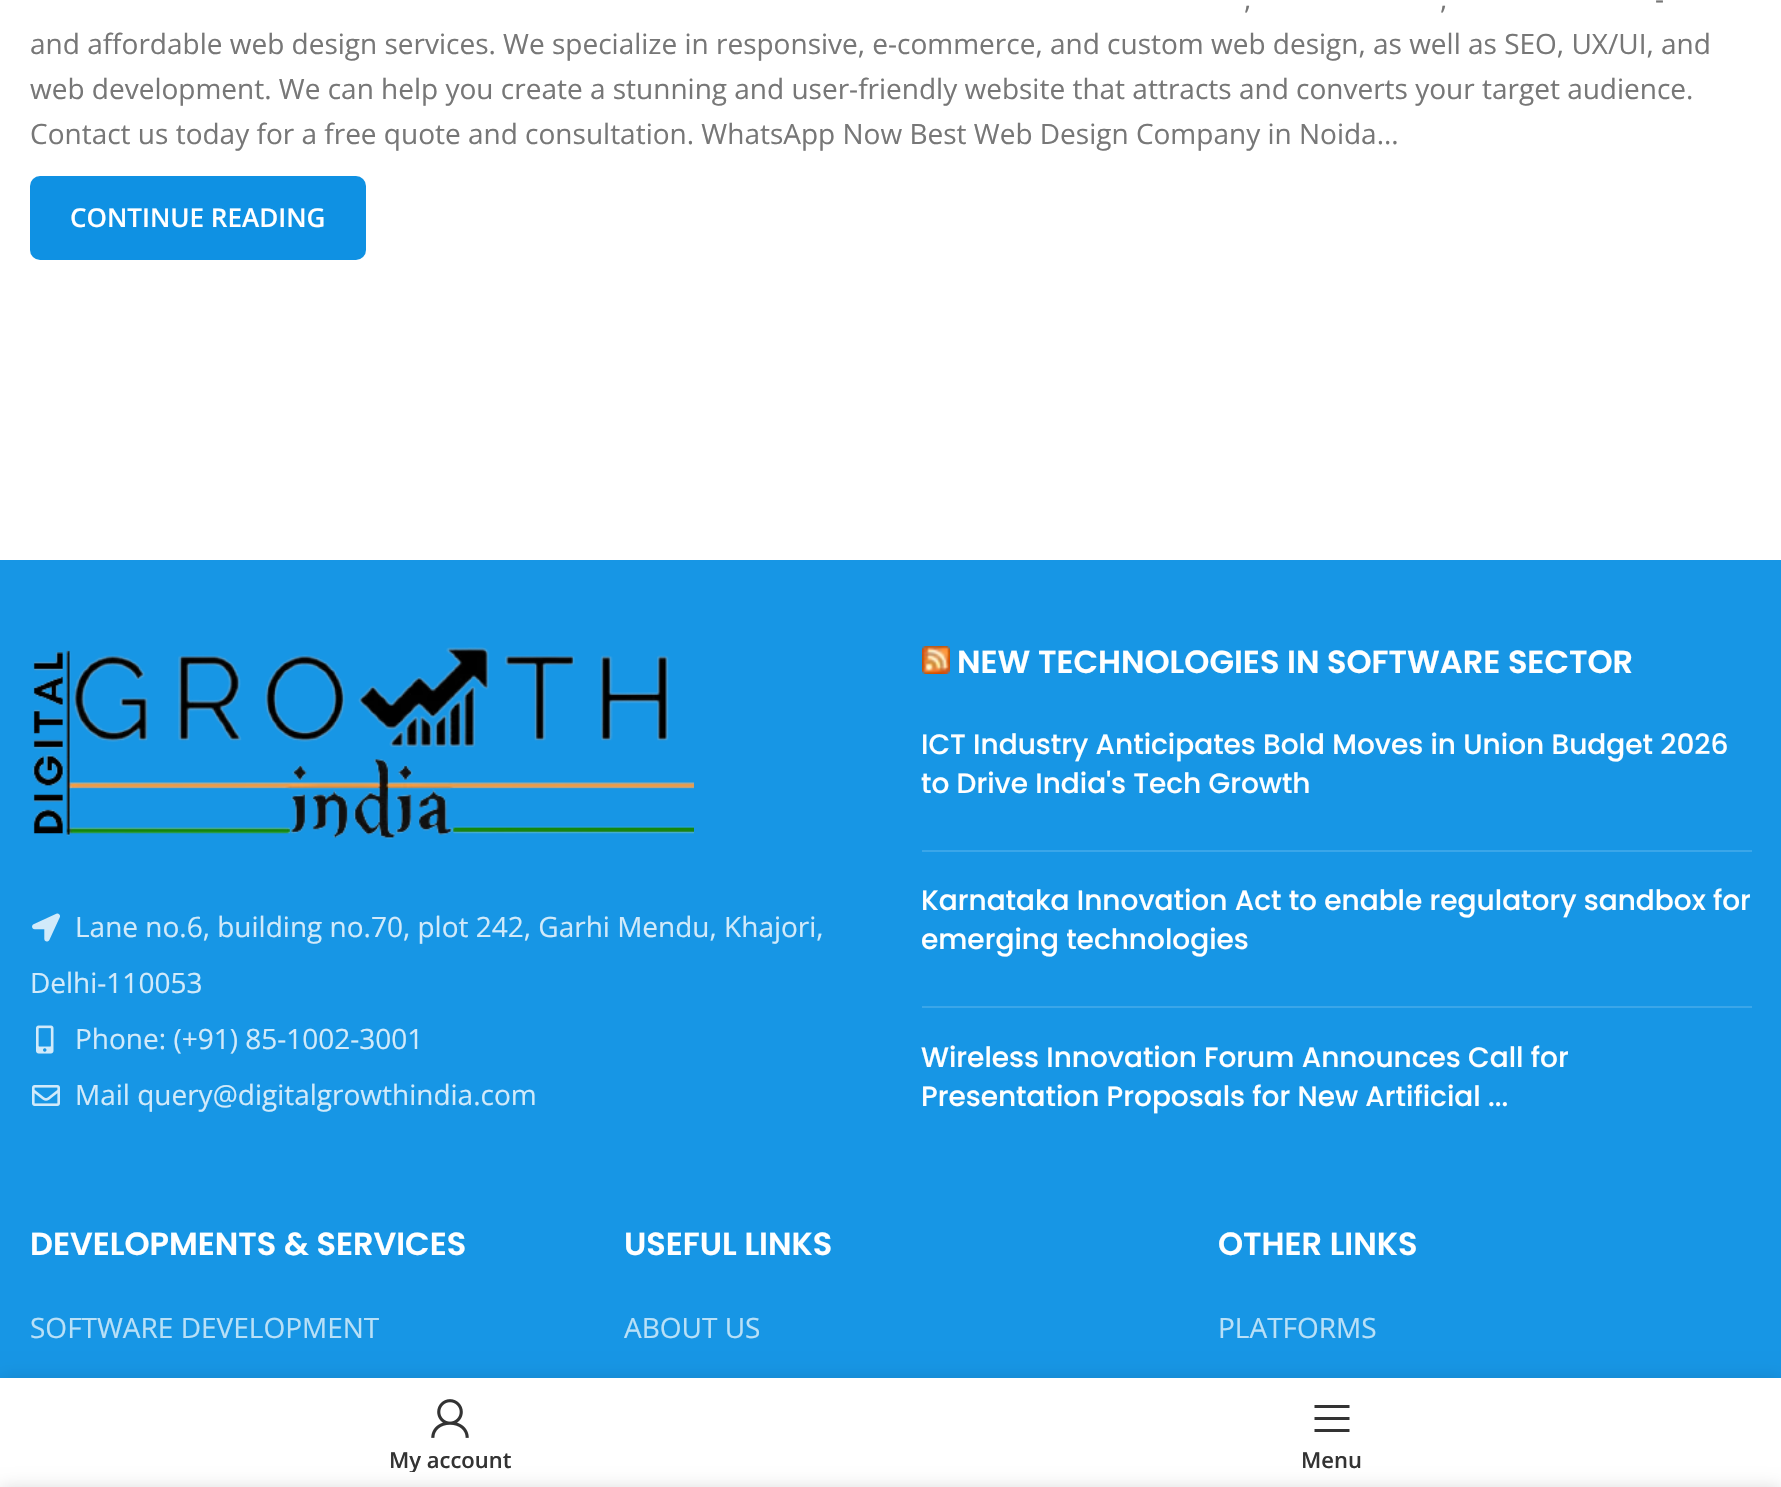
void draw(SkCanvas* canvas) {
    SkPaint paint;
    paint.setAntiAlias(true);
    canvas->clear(0xFFFFFFFF);
    SkFont font1(fontMgr->matchFamilyStyle("Open Sans", SkFontStyle::Normal()), 28);
    font1.setSubpixel(true);
    paint.setColor(0xFF777777);
    canvas->drawString("-", 1655, 9, font1, paint);
    canvas->drawString(",", 1244, 9, font1, paint);
    canvas->drawString(",", 1440, 9, font1, paint);
    canvas->drawString("and affordable web design services. We specialize in responsive, e-commerce, and custom web design, as well as SEO, UX/UI, and", 30, 54, font1, paint);
    canvas->drawString("web development. We can help you create a stunning and user-friendly website that attracts and converts your target audience.", 30, 99, font1, paint);
    canvas->drawString("Contact us today for a free quote and consultation. WhatsApp Now Best Web Design Company in Noida...", 30, 144, font1, paint);
    paint.setColor(0xFF0F91E3);
    canvas->drawRoundRect(SkRect::MakeXYWH(30, 176, 336, 84), 10, 10, paint);
    SkFont font2(fontMgr->matchFamilyStyle("Open Sans", SkFontStyle(600, SkFontStyle::kNormal_Width, SkFontStyle::kUpright_Slant)), 26);
    font2.setSubpixel(true);
    paint.setColor(0xFFFFFFFF);
    canvas->drawString("CONTINUE READING", 70, 227, font2, paint);
    paint.setColor(0xFF1796E5);
    canvas->drawRect(SkRect::MakeXYWH(0, 560, 1781, 818), paint);
    canvas->drawImageRect(SkImages::DeferredFromEncodedData(SkData::MakeFromFileName("img1.png")), SkRect::MakeXYWH(32, 647, 662, 192), SkSamplingOptions());
    canvas->drawImageRect(SkImages::DeferredFromEncodedData(SkData::MakeFromFileName("img2.png")), SkRect::MakeXYWH(32, 913, 28, 29), SkSamplingOptions());
    paint.setColor(0xFFD1EAFA);
    canvas->drawString("Lane no.6, building no.70, plot 242, Garhi Mendu, Khajori,", 75, 937, font1, paint);
    canvas->drawString("Delhi-110053", 30, 993, font1, paint);
    canvas->drawImageRect(SkImages::DeferredFromEncodedData(SkData::MakeFromFileName("img3.png")), SkRect::MakeXYWH(36, 1025, 18, 29), SkSamplingOptions());
    canvas->drawString("Phone: (+91) 85-1002-3001", 75, 1049, font1, paint);
    canvas->drawImageRect(SkImages::DeferredFromEncodedData(SkData::MakeFromFileName("img4.png")), SkRect::MakeXYWH(32, 1085, 28, 21), SkSamplingOptions());
    canvas->drawString("Mail query@digitalgrowthindia.com", 75, 1105, font1, paint);
    canvas->drawImageRect(SkImages::DeferredFromEncodedData(SkData::MakeFromFileName("img5.png")), SkRect::MakeXYWH(922, 646, 28, 28), SkSamplingOptions());
    SkFont font3(fontMgr->matchFamilyStyle("Poppins", SkFontStyle(600, SkFontStyle::kNormal_Width, SkFontStyle::kUpright_Slant)), 32);
    font3.setSubpixel(true);
    paint.setColor(0xFFFFFFFF);
    canvas->drawString("NEW TECHNOLOGIES IN SOFTWARE SECTOR", 957, 673, font3, paint);
    paint.setColor(0xFF3AA6E9);
    canvas->drawRect(SkRect::MakeXYWH(922, 850, 830, 2), paint);
    SkFont font4(fontMgr->matchFamilyStyle("Poppins", SkFontStyle(500, SkFontStyle::kNormal_Width, SkFontStyle::kUpright_Slant)), 28);
    font4.setSubpixel(true);
    paint.setColor(0xFFFFFFFF);
    canvas->drawString("ICT Industry Anticipates Bold Moves in Union Budget 2026", 921, 754, font4, paint);
    canvas->drawString("to Drive India's Tech Growth", 921, 793, font4, paint);
    paint.setColor(0xFF3AA6E9);
    canvas->drawRect(SkRect::MakeXYWH(922, 1006, 830, 2), paint);
    paint.setColor(0xFFFFFFFF);
    canvas->drawString("Karnataka Innovation Act to enable regulatory sandbox for", 921, 910, font4, paint);
    canvas->drawString("emerging technologies", 921, 949, font4, paint);
    canvas->drawString("Wireless Innovation Forum Announces Call for", 921, 1067, font4, paint);
    canvas->drawString("Presentation Proposals for New Artificial ...", 921, 1106, font4, paint);
    canvas->drawString("DEVELOPMENTS & SERVICES", 30, 1255, font3, paint);
    paint.setColor(0xFFB9E0F7);
    canvas->drawString("SOFTWARE DEVELOPMENT", 30, 1338, font1, paint);
    paint.setColor(0xFFFFFFFF);
    canvas->drawString("USEFUL LINKS", 624, 1255, font3, paint);
    paint.setColor(0xFFB9E0F7);
    canvas->drawString("ABOUT US", 624, 1338, font1, paint);
    paint.setColor(0xFFFFFFFF);
    canvas->drawString("OTHER LINKS", 1218, 1255, font3, paint);
    paint.setColor(0xFFB9E0F7);
    canvas->drawString("PLATFORMS", 1218, 1338, font1, paint);
    paint.setColor(0x1F000000);
    paint.setMaskFilter(SkMaskFilter::MakeBlur(kNormal_SkBlurStyle, 9));
    canvas->drawRect(SkRect::MakeXYWH(0, 1378, 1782, 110), paint);
    paint.setMaskFilter(nullptr);
    paint.setColor(0xFFFFFFFF);
    canvas->drawRect(SkRect::MakeXYWH(0, 1378, 1781, 109), paint);
    canvas->drawImageRect(SkImages::DeferredFromEncodedData(SkData::MakeFromFileName("img6.png")), SkRect::MakeXYWH(431, 1399, 38, 39), SkSamplingOptions());
    canvas->save();
    canvas->clipRect(SkRect::MakeXYWH(30, 1446, 842, 26));
    SkFont font5(fontMgr->matchFamilyStyle("Open Sans", SkFontStyle(600, SkFontStyle::kNormal_Width, SkFontStyle::kUpright_Slant)), 22);
    font5.setSubpixel(true);
    paint.setColor(0xFF333333);
    canvas->drawString("My account", 389, 1468, font5, paint);
    canvas->restore();
    canvas->drawPath(SkPathBuilder().moveTo(1314.5f, 1408).lineTo(1349.5f, 1408).lineTo(1349.5f, 1405).lineTo(1314.5f, 1405).close().moveTo(1314.5f, 1420).lineTo(1349.5f, 1420).lineTo(1349.5f, 1417).lineTo(1314.5f, 1417).close().moveTo(1314.5f, 1432).lineTo(1349.5f, 1432).lineTo(1349.5f, 1429).lineTo(1314.5f, 1429).close().detach(), paint);
    canvas->drawString("Menu", 1301, 1468, font5, paint);
    paint.setColor(0x24000000);
    paint.setMaskFilter(SkMaskFilter::MakeBlur(kNormal_SkBlurStyle, 9));
    canvas->drawRect(SkRect::MakeXYWH(0, 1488, 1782, 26), paint);
    paint.setMaskFilter(nullptr);
}
